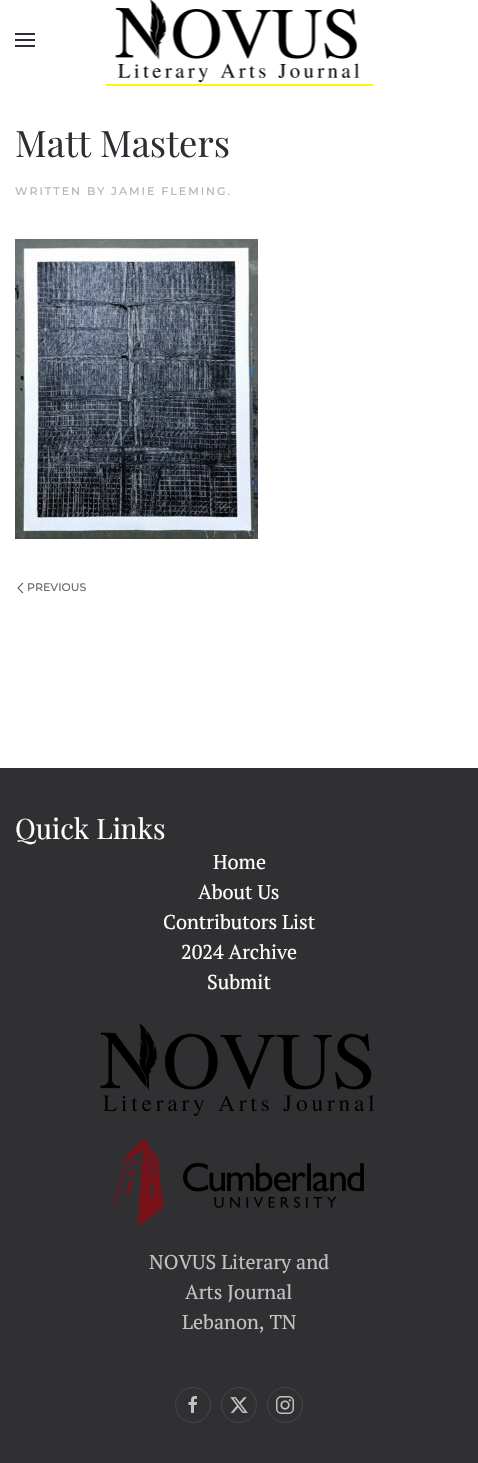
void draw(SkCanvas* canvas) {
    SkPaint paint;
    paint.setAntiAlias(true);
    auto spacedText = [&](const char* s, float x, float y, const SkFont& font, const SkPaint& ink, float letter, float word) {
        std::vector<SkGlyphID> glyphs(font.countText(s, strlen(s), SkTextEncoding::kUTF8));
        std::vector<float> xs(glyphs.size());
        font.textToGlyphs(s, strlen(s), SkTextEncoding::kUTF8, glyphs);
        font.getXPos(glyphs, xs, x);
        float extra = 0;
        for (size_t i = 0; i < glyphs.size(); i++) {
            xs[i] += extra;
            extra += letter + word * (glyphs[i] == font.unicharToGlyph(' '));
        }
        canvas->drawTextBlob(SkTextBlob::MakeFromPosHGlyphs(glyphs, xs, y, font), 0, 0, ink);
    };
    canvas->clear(0xFFFFFFFF);
    paint.setColor(0xFF2D2E33);
    canvas->drawRect(SkRect::MakeXYWH(15, 33, 20, 2), paint);
    canvas->drawRect(SkRect::MakeXYWH(15, 39, 20, 2), paint);
    canvas->drawRect(SkRect::MakeXYWH(15, 45, 20, 2), paint);
    paint.setColor(0xFFFFF700);
    canvas->drawRect(SkRect::MakeXYWH(106, 84, 267, 2), paint);
    canvas->drawImageRect(SkImages::DeferredFromEncodedData(SkData::MakeFromFileName("img1.png")), SkRect::MakeXYWH(115, 0, 245, 83), SkSamplingOptions());
    SkFont font1(fontMgr->matchFamilyStyle("Playfair Display", SkFontStyle::Normal()), 36.5f);
    font1.setSubpixel(true);
    paint.setColor(0xFF2D2E33);
    canvas->drawString("Matt Masters", 15, 157, font1, paint);
    SkFont font2(fontMgr->matchFamilyStyle("Montserrat", SkFontStyle(100, SkFontStyle::kNormal_Width, SkFontStyle::kUpright_Slant)), 11);
    font2.setSubpixel(true);
    paint.setColor(0xFFB4B5BA);
    spacedText("WRITTEN BY JAMIE FLEMING.", 15, 195, font2, paint, 2, 0);
    canvas->drawImageRect(SkImages::DeferredFromEncodedData(SkData::MakeFromFileName("img2.png")), SkRect::MakeXYWH(15, 239, 243, 300), SkSamplingOptions());
    paint.setStyle(SkPaint::kStroke_Style);
    paint.setStrokeWidth(1.2f);
    paint.setColor(0xFF6C6D74);
    canvas->drawPath(SkPathBuilder().moveTo(23, 583).lineTo(18, 588).lineTo(23, 593).detach(), paint);
    paint.setStyle(SkPaint::kFill_Style);
    canvas->drawString("PREVIOUS", 27, 591, font2, paint);
    paint.setColor(0xFF303033);
    canvas->drawRect(SkRect::MakeXYWH(0, 768, 478, 695), paint);
    SkFont font3(fontMgr->matchFamilyStyle("Playfair Display", SkFontStyle::Normal()), 28);
    font3.setSubpixel(true);
    paint.setColor(0xFFFFFFFF);
    canvas->drawString("Quick Links", 15, 839, font3, paint);
    SkFont font4(fontMgr->matchFamilyStyle("PT Serif", SkFontStyle::Normal()), 20);
    font4.setSubpixel(true);
    canvas->drawString("Home", 213, 869, font4, paint);
    canvas->drawString("About Us", 198, 899, font4, paint);
    canvas->drawString("Contributors List", 163, 929, font4, paint);
    canvas->drawString("2024 Archive", 181, 959, font4, paint);
    canvas->drawString("Submit", 207, 989, font4, paint);
    canvas->drawImageRect(SkImages::DeferredFromEncodedData(SkData::MakeFromFileName("img3.png")), SkRect::MakeXYWH(100, 1023, 274, 93), SkSamplingOptions());
    canvas->drawImageRect(SkImages::DeferredFromEncodedData(SkData::MakeFromFileName("img4.png")), SkRect::MakeXYWH(114, 1138, 250, 89), SkSamplingOptions());
    paint.setColor(0xFFC1C1C2);
    canvas->drawString("NOVUS Literary and", 149, 1269, font4, paint);
    canvas->drawString("Arts Journal", 185, 1299, font4, paint);
    canvas->drawString("Lebanon, TN", 182, 1329, font4, paint);
    paint.setStyle(SkPaint::kStroke_Style);
    paint.setStrokeWidth(1);
    paint.setColor(0xFF454547);
    canvas->drawCircle(193, 1405, 17.5f, paint);
    canvas->drawImageRect(SkImages::DeferredFromEncodedData(SkData::MakeFromFileName("img5.png")), SkRect::MakeXYWH(188, 1396, 9, 17), SkSamplingOptions());
    canvas->drawCircle(239, 1405, 17.5f, paint);
    canvas->drawImageRect(SkImages::DeferredFromEncodedData(SkData::MakeFromFileName("img6.png")), SkRect::MakeXYWH(230, 1397, 18, 16), SkSamplingOptions());
    canvas->drawCircle(285, 1405, 17.5f, paint);
    canvas->drawImageRect(SkImages::DeferredFromEncodedData(SkData::MakeFromFileName("img7.png")), SkRect::MakeXYWH(276, 1396, 18, 18), SkSamplingOptions());
}
